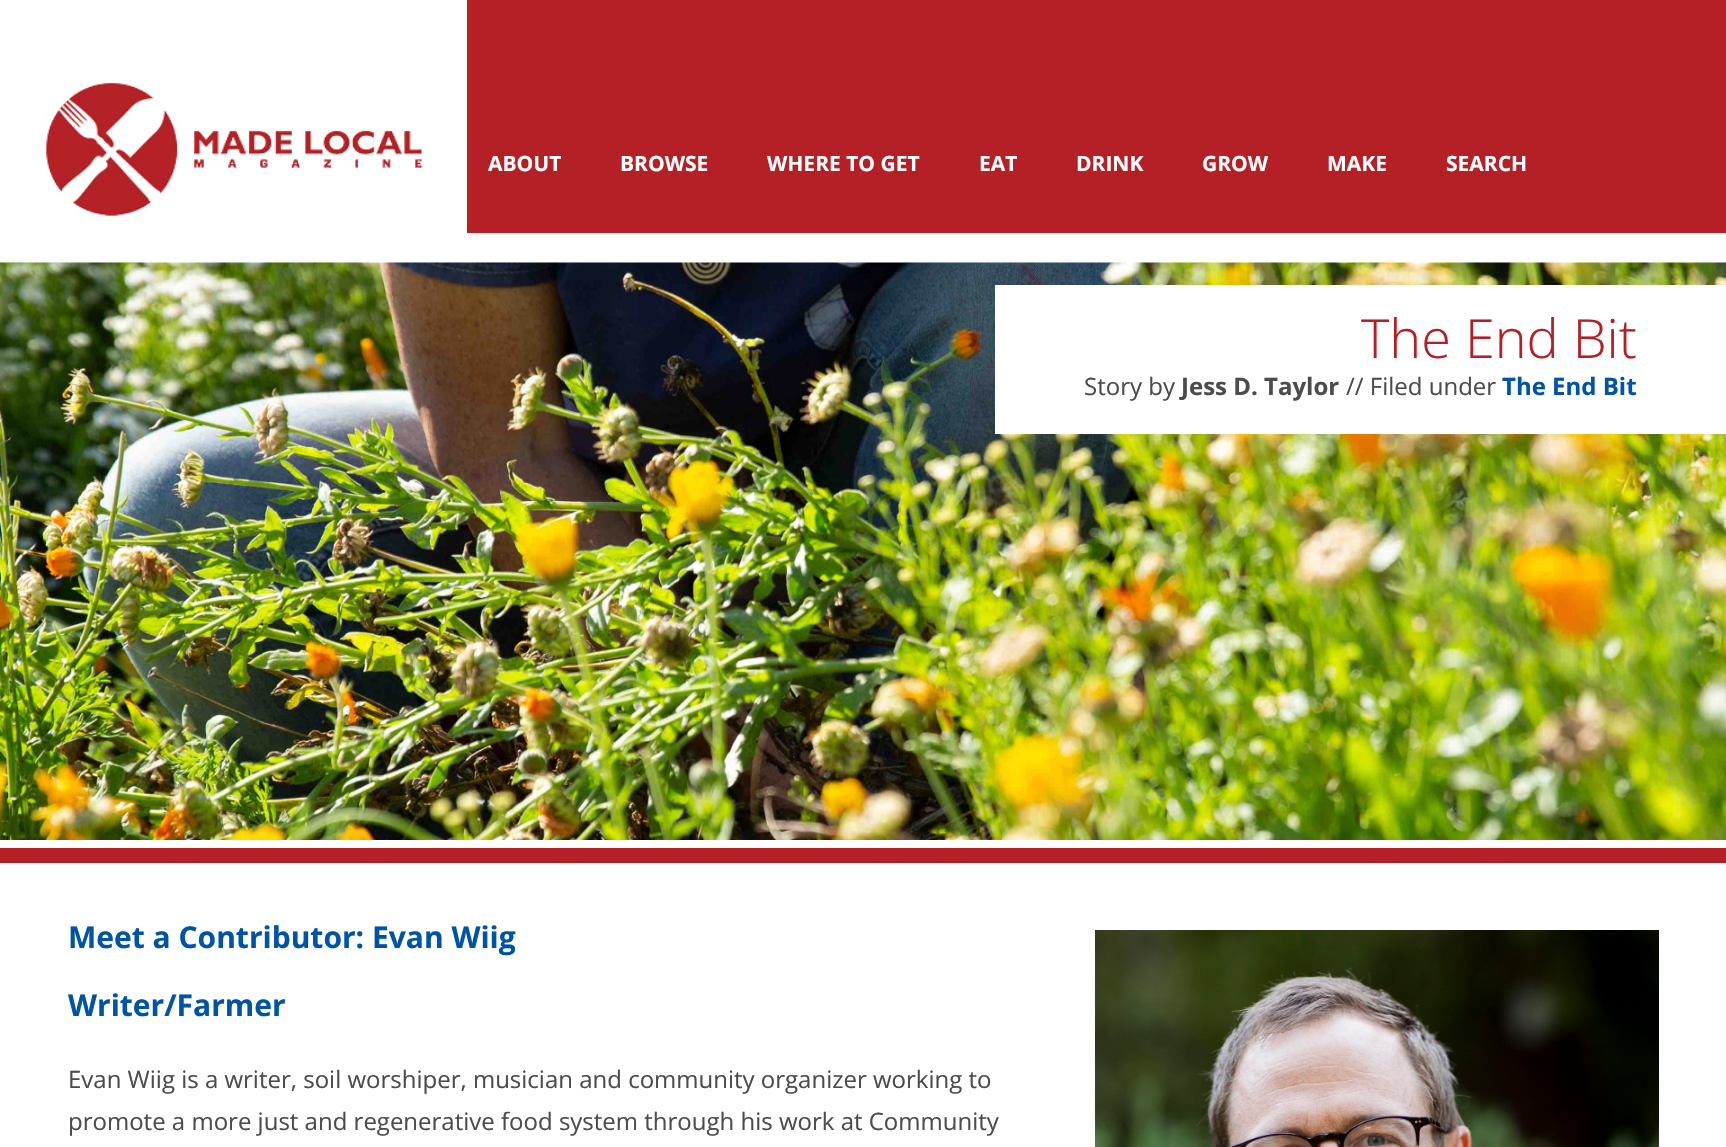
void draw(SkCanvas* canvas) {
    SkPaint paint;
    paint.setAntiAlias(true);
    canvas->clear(0xFFFFFFFF);
    paint.setColor(0xFFB42025);
    canvas->drawRect(SkRect::MakeXYWH(467, 0, 1259, 233), paint);
    canvas->drawImageRect(SkImages::DeferredFromEncodedData(SkData::MakeFromFileName("img1.png")), SkRect::MakeXYWH(45, 82, 378, 134), SkSamplingOptions());
    SkFont font1(fontMgr->matchFamilyStyle("Open Sans", SkFontStyle::Bold()), 21);
    font1.setSubpixel(true);
    paint.setColor(0xFFFFFFFF);
    canvas->drawString("ABOUT", 488, 171, font1, paint);
    canvas->drawString("BROWSE", 620, 171, font1, paint);
    canvas->drawString("WHERE TO GET", 767, 171, font1, paint);
    canvas->drawString("EAT", 979, 171, font1, paint);
    canvas->drawString("DRINK", 1076, 171, font1, paint);
    canvas->drawString("GROW", 1202, 171, font1, paint);
    canvas->drawString("MAKE", 1327, 171, font1, paint);
    canvas->drawString("SEARCH", 1446, 171, font1, paint);
    paint.setColor(0xFFB42025);
    canvas->drawRect(SkRect::MakeXYWH(0, 848, 1726, 15), paint);
    canvas->drawImageRect(SkImages::DeferredFromEncodedData(SkData::MakeFromFileName("img2.png")), SkRect::MakeXYWH(0, 262, 1726, 578), SkSamplingOptions());
    paint.setColor(0xFFFFFFFF);
    canvas->drawRect(SkRect::MakeXYWH(995, 285, 731, 149), paint);
    SkFont font2(fontMgr->matchFamilyStyle("Open Sans", SkFontStyle(300, SkFontStyle::kNormal_Width, SkFontStyle::kUpright_Slant)), 54);
    font2.setSubpixel(true);
    paint.setColor(0xFFB42025);
    canvas->drawString("The End Bit", 1361, 358, font2, paint);
    SkFont font3(fontMgr->matchFamilyStyle("Open Sans", SkFontStyle::Normal()), 24);
    font3.setSubpixel(true);
    paint.setColor(0xFF4C4C4C);
    canvas->drawString("Story by", 1084, 395, font3, paint);
    SkFont font4(fontMgr->matchFamilyStyle("Open Sans", SkFontStyle::Bold()), 24);
    font4.setSubpixel(true);
    canvas->drawString("Jess D. Taylor", 1181, 395, font4, paint);
    canvas->drawString("// Filed under", 1346, 395, font3, paint);
    paint.setColor(0xFF0054A6);
    canvas->drawString("The End Bit", 1502, 395, font4, paint);
    SkFont font5(fontMgr->matchFamilyStyle("Open Sans", SkFontStyle::Bold()), 30);
    font5.setSubpixel(true);
    canvas->drawString("Meet a Contributor: Evan Wiig", 68, 948, font5, paint);
    canvas->drawImageRect(SkImages::DeferredFromEncodedData(SkData::MakeFromFileName("img3.png")), SkRect::MakeXYWH(1095, 930, 564, 217), SkSamplingOptions());
    canvas->drawString("Writer/Farmer", 68, 1016, font5, paint);
    paint.setColor(0xFF4C4C4C);
    canvas->drawString("Evan Wiig is a writer, soil worshiper, musician and community organizer working to", 68, 1088, font3, paint);
    canvas->drawString("promote a more just and regenerative food system through his work at Community", 68, 1130, font3, paint);
}
